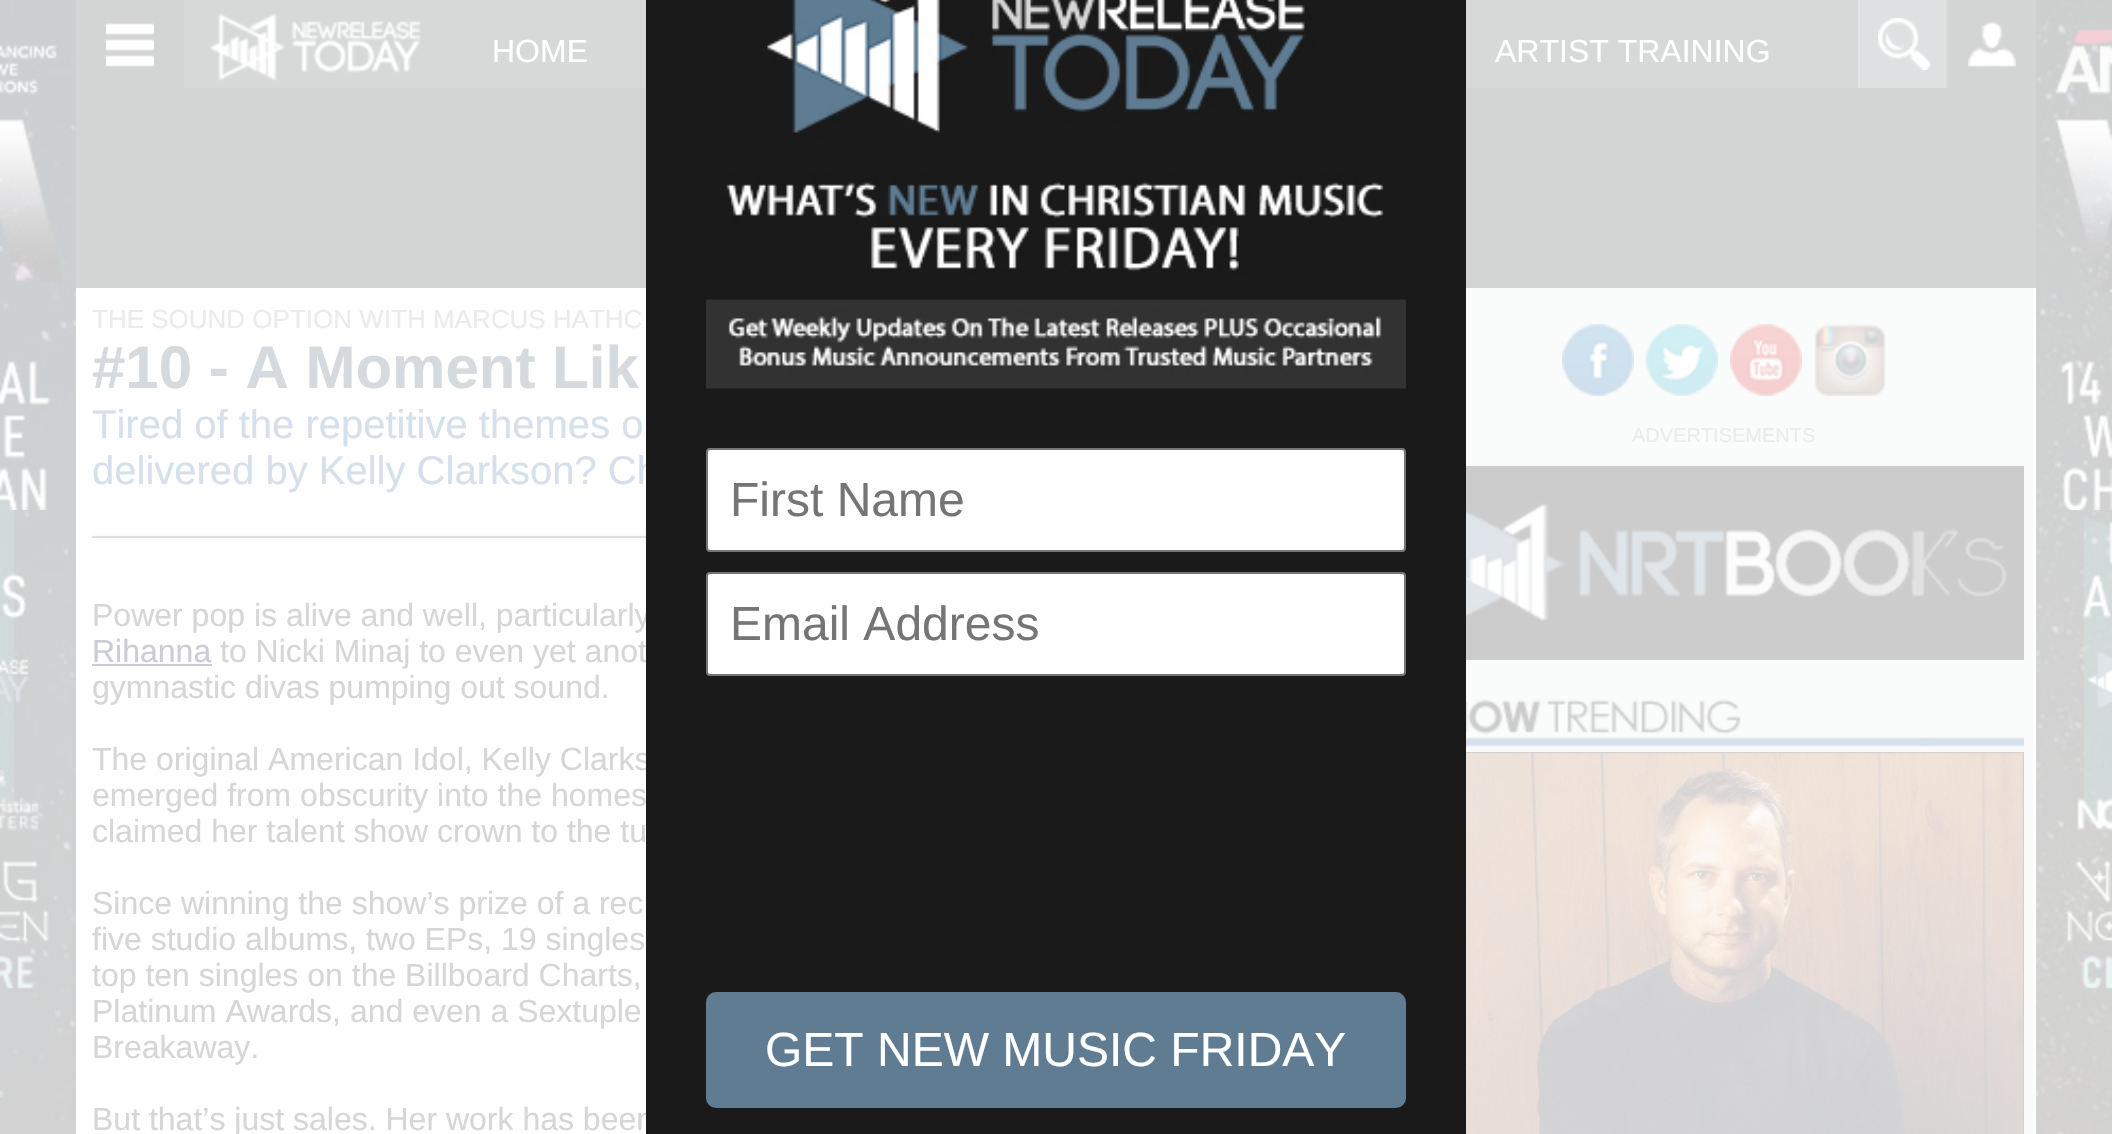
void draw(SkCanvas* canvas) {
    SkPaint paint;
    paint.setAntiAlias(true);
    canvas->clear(0xFFFFFFFF);
    canvas->drawImageRect(SkImages::DeferredFromEncodedData(SkData::MakeFromFileName("img1.png")), SkRect::MakeXYWH(0, 0, 2112, 1134), SkSamplingOptions());
    paint.setColor(0xFFD7D9D9);
    canvas->drawRect(SkRect::MakeXYWH(184, 0, 1764, 88), paint);
    paint.setColor(0xFFD3D4D4);
    canvas->drawRect(SkRect::MakeXYWH(76, 0, 108, 88), paint);
    canvas->drawImageRect(SkImages::DeferredFromEncodedData(SkData::MakeFromFileName("img2.png")), SkRect::MakeXYWH(106, 23, 48, 44), SkSamplingOptions());
    canvas->drawImageRect(SkImages::DeferredFromEncodedData(SkData::MakeFromFileName("img3.png")), SkRect::MakeXYWH(209, 13, 212, 68), SkSamplingOptions());
    SkFont font1(fontMgr->matchFamilyStyle("Liberation Sans", SkFontStyle::Normal()), 32);
    font1.setSubpixel(true);
    paint.setColor(0xFFFFFFFF);
    canvas->drawString("HOME", 492, 62, font1, paint);
    canvas->drawString("ARTIST TRAINING", 1495, 62, font1, paint);
    paint.setColor(0xFFDEE1E1);
    canvas->drawRect(SkRect::MakeXYWH(1860, 0, 86, 88), paint);
    canvas->drawImageRect(SkImages::DeferredFromEncodedData(SkData::MakeFromFileName("img4.png")), SkRect::MakeXYWH(1878, 18, 52, 52), SkSamplingOptions());
    paint.setColor(0xFFE2E6E5);
    canvas->drawRect(SkRect::MakeXYWH(1858, 0, 2, 88), paint);
    paint.setColor(0xFFD3D4D4);
    canvas->drawRect(SkRect::MakeXYWH(1948, 0, 88, 88), paint);
    canvas->drawImageRect(SkImages::DeferredFromEncodedData(SkData::MakeFromFileName("img5.png")), SkRect::MakeXYWH(1968, 22, 48, 46), SkSamplingOptions());
    canvas->drawRect(SkRect::MakeXYWH(76, 88, 1960, 200), paint);
    paint.setColor(0xFFFFFFFF);
    canvas->drawRect(SkRect::MakeXYWH(76, 288, 570, 846), paint);
    SkFont font2(fontMgr->matchFamilyStyle("Liberation Sans", SkFontStyle::Normal()), 26);
    font2.setSubpixel(true);
    paint.setColor(0xFFEBEBEB);
    canvas->drawString("THE SOUND OPTION WITH MARCUS HATHC", 92, 328, font2, paint);
    SkFont font3(fontMgr->matchFamilyStyle("Liberation Sans", SkFontStyle::Bold()), 60);
    font3.setSubpixel(true);
    paint.setColor(0xFFD5DADE);
    canvas->drawString("#10 - A Moment Lik", 92, 388, font3, paint);
    SkFont font4(fontMgr->matchFamilyStyle("Liberation Sans", SkFontStyle::Normal()), 40);
    font4.setSubpixel(true);
    paint.setColor(0xFFD6E0EB);
    canvas->drawString("Tired of the repetitive themes o", 92, 438, font4, paint);
    canvas->drawString("delivered by Kelly Clarkson? Ch", 92, 484, font4, paint);
    paint.setColor(0xFFFCFCFC);
    canvas->drawRect(SkRect::MakeXYWH(92, 534, 554, 2), paint);
    paint.setColor(0xFFE0E0E0);
    canvas->drawRect(SkRect::MakeXYWH(92, 536, 554, 2), paint);
    paint.setColor(0xFFD6D6D6);
    canvas->drawString("Power pop is alive and well, particularly", 92, 626, font1, paint);
    paint.setColor(0xFFCCCCD6);
    canvas->drawString("Rihanna", 92, 662, font1, paint);
    canvas->drawRect(SkRect::MakeXYWH(92, 664, 120, 2), paint);
    paint.setColor(0xFFD6D6D6);
    canvas->drawString("to Nicki Minaj to even yet anot", 220, 662, font1, paint);
    canvas->drawString("gymnastic divas pumping out sound.", 92, 698, font1, paint);
    canvas->drawString("The original American Idol, Kelly Clarks", 92, 770, font1, paint);
    canvas->drawString("emerged from obscurity into the homes", 92, 806, font1, paint);
    canvas->drawString("claimed her talent show crown to the tu", 92, 842, font1, paint);
    canvas->drawString("Since winning the show’s prize of a rec", 92, 914, font1, paint);
    canvas->drawString("five studio albums, two EPs, 19 singles", 92, 950, font1, paint);
    canvas->drawString("top ten singles on the Billboard Charts,", 92, 986, font1, paint);
    canvas->drawString("Platinum Awards, and even a Sextuple", 92, 1022, font1, paint);
    canvas->drawString("Breakaway.", 92, 1058, font1, paint);
    canvas->drawString("But that’s just sales. Her work has been", 92, 1130, font1, paint);
    canvas->drawImageRect(SkImages::DeferredFromEncodedData(SkData::MakeFromFileName("img6.png")), SkRect::MakeXYWH(1466, 288, 570, 846), SkSamplingOptions());
    canvas->drawImageRect(SkImages::DeferredFromEncodedData(SkData::MakeFromFileName("img7.png")), SkRect::MakeXYWH(1562, 324, 72, 72), SkSamplingOptions());
    canvas->drawImageRect(SkImages::DeferredFromEncodedData(SkData::MakeFromFileName("img8.png")), SkRect::MakeXYWH(1646, 324, 72, 72), SkSamplingOptions());
    canvas->drawImageRect(SkImages::DeferredFromEncodedData(SkData::MakeFromFileName("img9.png")), SkRect::MakeXYWH(1730, 324, 72, 72), SkSamplingOptions());
    canvas->drawImageRect(SkImages::DeferredFromEncodedData(SkData::MakeFromFileName("img10.png")), SkRect::MakeXYWH(1814, 324, 72, 72), SkSamplingOptions());
    SkFont font5(fontMgr->matchFamilyStyle("Liberation Sans", SkFontStyle::Normal()), 20);
    font5.setSubpixel(true);
    paint.setColor(0xFFEBEBEB);
    canvas->drawString("ADVERTISEMENTS", 1632, 442, font5, paint);
    canvas->drawImageRect(SkImages::DeferredFromEncodedData(SkData::MakeFromFileName("img11.png")), SkRect::MakeXYWH(1466, 466, 558, 194), SkSamplingOptions());
    canvas->drawImageRect(SkImages::DeferredFromEncodedData(SkData::MakeFromFileName("img12.png")), SkRect::MakeXYWH(1466, 699, 558, 48), SkSamplingOptions());
    canvas->drawImageRect(SkImages::DeferredFromEncodedData(SkData::MakeFromFileName("img13.png")), SkRect::MakeXYWH(1466, 752, 558, 382), SkSamplingOptions());
    paint.setColor(0xFF1A1A1A);
    canvas->drawRect(SkRect::MakeXYWH(646, 0, 820, 1134), paint);
    canvas->drawImageRect(SkImages::DeferredFromEncodedData(SkData::MakeFromFileName("img14.png")), SkRect::MakeXYWH(706, 0, 700, 389), SkSamplingOptions());
    paint.setColor(0xFFFFFFFF);
    canvas->drawRoundRect(SkRect::MakeXYWH(707, 449, 698, 102), 3, 3, paint);
    paint.setStyle(SkPaint::kStroke_Style);
    paint.setStrokeWidth(2);
    paint.setColor(0xFF767676);
    canvas->drawRoundRect(SkRect::MakeXYWH(707, 449, 698, 102), 3, 3, paint);
    SkFont font6(fontMgr->matchFamilyStyle("Liberation Sans", SkFontStyle::Normal()), 48);
    font6.setSubpixel(true);
    paint.setStyle(SkPaint::kFill_Style);
    paint.setColor(0xFF757575);
    canvas->drawString("First Name", 730, 516, font6, paint);
    paint.setColor(0xFFFFFFFF);
    canvas->drawRoundRect(SkRect::MakeXYWH(707, 573, 698, 102), 3, 3, paint);
    paint.setStyle(SkPaint::kStroke_Style);
    paint.setColor(0xFF767676);
    canvas->drawRoundRect(SkRect::MakeXYWH(707, 573, 698, 102), 3, 3, paint);
    paint.setStyle(SkPaint::kFill_Style);
    paint.setColor(0xFF757575);
    canvas->drawString("Email Address", 730, 640, font6, paint);
    paint.setColor(0xFF607C92);
    canvas->drawRoundRect(SkRect::MakeXYWH(706, 992, 700, 116), 10, 10, paint);
    paint.setColor(0xFFFFFFFF);
    canvas->drawString("GET NEW MUSIC FRIDAY", 765, 1066, font6, paint);
}
